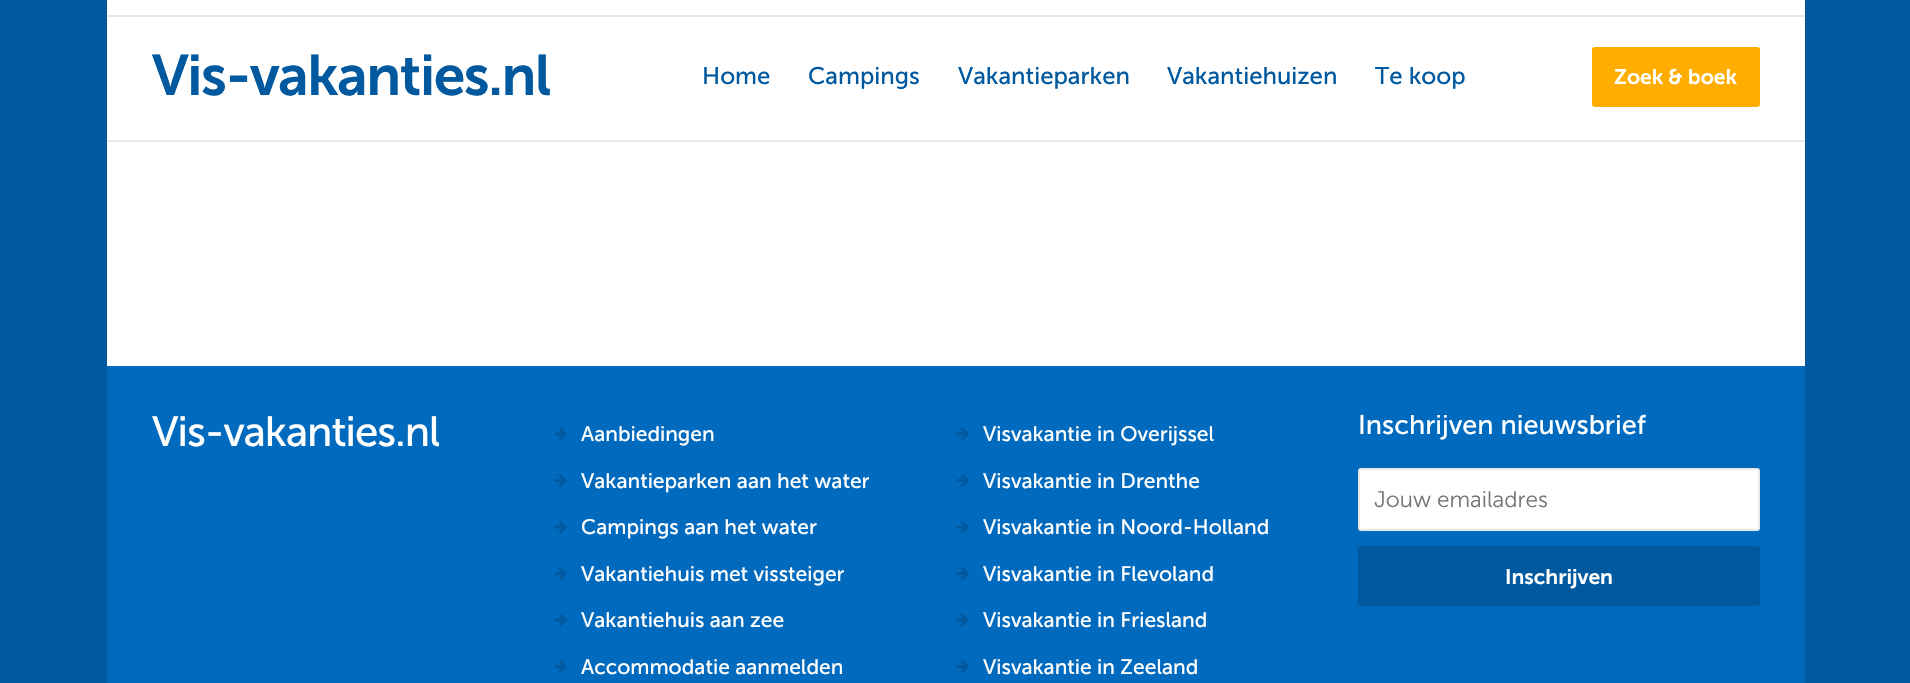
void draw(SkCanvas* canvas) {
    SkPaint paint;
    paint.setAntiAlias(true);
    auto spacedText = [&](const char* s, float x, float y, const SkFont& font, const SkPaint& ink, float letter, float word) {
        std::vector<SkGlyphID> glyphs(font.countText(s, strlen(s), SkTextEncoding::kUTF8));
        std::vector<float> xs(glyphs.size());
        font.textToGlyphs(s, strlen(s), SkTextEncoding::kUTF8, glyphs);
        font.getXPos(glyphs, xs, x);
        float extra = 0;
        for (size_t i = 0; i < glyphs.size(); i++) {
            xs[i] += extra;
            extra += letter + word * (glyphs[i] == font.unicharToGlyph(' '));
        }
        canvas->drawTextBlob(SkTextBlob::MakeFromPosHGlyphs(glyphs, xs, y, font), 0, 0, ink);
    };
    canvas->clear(0xFF00599F);
    paint.setColor(0xFFFFFFFF);
    canvas->drawRect(SkRect::MakeXYWH(107, 0, 1698, 15), paint);
    paint.setColor(0xFFE8E8E8);
    canvas->drawRect(SkRect::MakeXYWH(107, 15, 1698, 2), paint);
    paint.setColor(0xFFFFFFFF);
    canvas->drawRect(SkRect::MakeXYWH(107, 17, 1698, 123), paint);
    SkFont font1(fontMgr->matchFamilyStyle("Museo Sans", SkFontStyle(600, SkFontStyle::kNormal_Width, SkFontStyle::kUpright_Slant)), 57);
    font1.setSubpixel(true);
    paint.setColor(0xFF00599F);
    spacedText("Vis-vakanties.nl", 152, 95, font1, paint, -1.4f, 0);
    SkFont font2(fontMgr->matchFamilyStyle("Museo Sans", SkFontStyle::Normal()), 24);
    font2.setSubpixel(true);
    canvas->drawString("Home", 702, 84, font2, paint);
    canvas->drawString("Campings", 808, 84, font2, paint);
    canvas->drawString("Vakantieparken", 958, 84, font2, paint);
    canvas->drawString("Vakantiehuizen", 1167, 84, font2, paint);
    canvas->drawString("Te koop", 1375, 84, font2, paint);
    paint.setColor(0xFFFFAD00);
    canvas->drawRoundRect(SkRect::MakeXYWH(1592, 47, 168, 60), 3, 3, paint);
    SkFont font3(fontMgr->matchFamilyStyle("Museo Sans", SkFontStyle(600, SkFontStyle::kNormal_Width, SkFontStyle::kUpright_Slant)), 21);
    font3.setSubpixel(true);
    paint.setColor(0xFFFFFFFF);
    canvas->drawString("Zoek & boek", 1614, 84, font3, paint);
    canvas->drawRect(SkRect::MakeXYWH(107, 142, 1698, 224), paint);
    paint.setColor(0xFFE8E8E8);
    canvas->drawRect(SkRect::MakeXYWH(107, 140, 1698, 2), paint);
    paint.setColor(0xFF006ABE);
    canvas->drawRect(SkRect::MakeXYWH(107, 366, 1698, 317), paint);
    SkFont font4(fontMgr->matchFamilyStyle("Museo Sans", SkFontStyle::Normal()), 42);
    font4.setSubpixel(true);
    paint.setColor(0xFFFFFFFF);
    spacedText("Vis-vakanties.nl", 152, 446, font4, paint, -1, 0);
    canvas->drawImageRect(SkImages::DeferredFromEncodedData(SkData::MakeFromFileName("img1.png")), SkRect::MakeXYWH(554, 427, 13, 14), SkSamplingOptions());
    SkFont font5(fontMgr->matchFamilyStyle("Museo Sans", SkFontStyle::Normal()), 21);
    font5.setSubpixel(true);
    canvas->drawString("Aanbiedingen", 581, 441, font5, paint);
    canvas->drawImageRect(SkImages::DeferredFromEncodedData(SkData::MakeFromFileName("img1.png")), SkRect::MakeXYWH(956, 427, 13, 14), SkSamplingOptions());
    canvas->drawString("Visvakantie in Overijssel", 983, 441, font5, paint);
    canvas->drawImageRect(SkImages::DeferredFromEncodedData(SkData::MakeFromFileName("img2.png")), SkRect::MakeXYWH(554, 474, 13, 13), SkSamplingOptions());
    canvas->drawString("Vakantieparken aan het water", 581, 488, font5, paint);
    canvas->drawImageRect(SkImages::DeferredFromEncodedData(SkData::MakeFromFileName("img2.png")), SkRect::MakeXYWH(956, 474, 13, 13), SkSamplingOptions());
    canvas->drawString("Visvakantie in Drenthe", 983, 488, font5, paint);
    canvas->drawImageRect(SkImages::DeferredFromEncodedData(SkData::MakeFromFileName("img1.png")), SkRect::MakeXYWH(554, 520, 13, 14), SkSamplingOptions());
    canvas->drawString("Campings aan het water", 581, 534, font5, paint);
    canvas->drawImageRect(SkImages::DeferredFromEncodedData(SkData::MakeFromFileName("img1.png")), SkRect::MakeXYWH(956, 520, 13, 14), SkSamplingOptions());
    canvas->drawString("Visvakantie in Noord-Holland", 983, 534, font5, paint);
    canvas->drawImageRect(SkImages::DeferredFromEncodedData(SkData::MakeFromFileName("img2.png")), SkRect::MakeXYWH(554, 567, 13, 13), SkSamplingOptions());
    canvas->drawString("Vakantiehuis met vissteiger", 581, 581, font5, paint);
    canvas->drawImageRect(SkImages::DeferredFromEncodedData(SkData::MakeFromFileName("img2.png")), SkRect::MakeXYWH(956, 567, 13, 13), SkSamplingOptions());
    canvas->drawString("Visvakantie in Flevoland", 983, 581, font5, paint);
    canvas->drawImageRect(SkImages::DeferredFromEncodedData(SkData::MakeFromFileName("img1.png")), SkRect::MakeXYWH(554, 613, 13, 14), SkSamplingOptions());
    canvas->drawString("Vakantiehuis aan zee", 581, 627, font5, paint);
    canvas->drawImageRect(SkImages::DeferredFromEncodedData(SkData::MakeFromFileName("img1.png")), SkRect::MakeXYWH(956, 613, 13, 14), SkSamplingOptions());
    canvas->drawString("Visvakantie in Friesland", 983, 627, font5, paint);
    canvas->drawImageRect(SkImages::DeferredFromEncodedData(SkData::MakeFromFileName("img2.png")), SkRect::MakeXYWH(554, 660, 13, 13), SkSamplingOptions());
    canvas->drawString("Accommodatie aanmelden", 581, 674, font5, paint);
    canvas->drawImageRect(SkImages::DeferredFromEncodedData(SkData::MakeFromFileName("img2.png")), SkRect::MakeXYWH(956, 660, 13, 13), SkSamplingOptions());
    canvas->drawString("Visvakantie in Zeeland", 983, 674, font5, paint);
    SkFont font6(fontMgr->matchFamilyStyle("Museo Sans", SkFontStyle::Normal()), 27);
    font6.setSubpixel(true);
    canvas->drawString("Inschrijven nieuwsbrief", 1358, 434, font6, paint);
    canvas->drawRoundRect(SkRect::MakeXYWH(1359, 469, 400, 61), 2, 2, paint);
    paint.setStyle(SkPaint::kStroke_Style);
    paint.setStrokeWidth(2);
    paint.setColor(0xFFE8E8E8);
    canvas->drawRoundRect(SkRect::MakeXYWH(1359, 469, 400, 61), 2, 2, paint);
    SkFont font7(fontMgr->matchFamilyStyle("Museo Sans", SkFontStyle(300, SkFontStyle::kNormal_Width, SkFontStyle::kUpright_Slant)), 22.5f);
    font7.setSubpixel(true);
    paint.setStyle(SkPaint::kFill_Style);
    paint.setColor(0xFF757575);
    canvas->drawString("Jouw emailadres", 1374, 507, font7, paint);
    paint.setColor(0xFF00599F);
    canvas->drawRoundRect(SkRect::MakeXYWH(1358, 546, 402, 60), 3, 3, paint);
    paint.setColor(0xFFFFFFFF);
    canvas->drawString("Inschrijven", 1505, 584, font3, paint);
}
